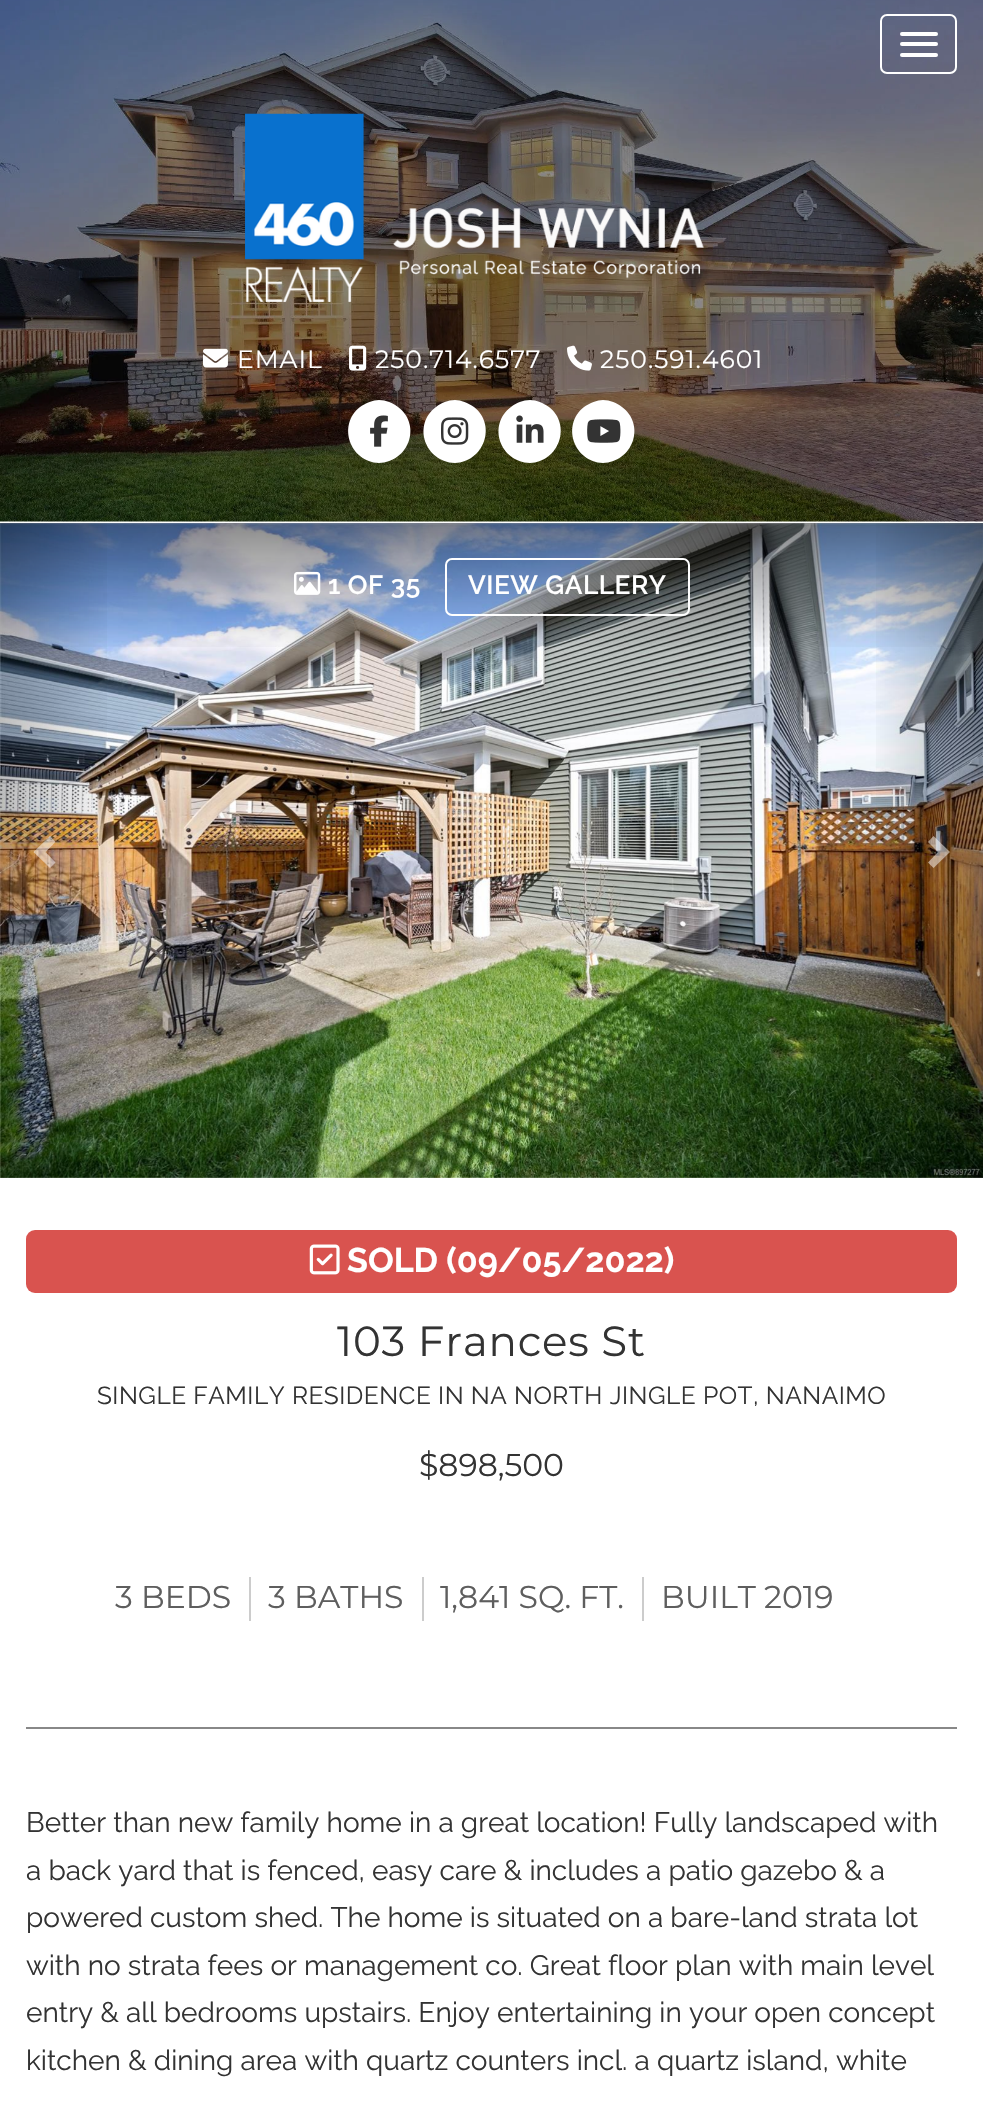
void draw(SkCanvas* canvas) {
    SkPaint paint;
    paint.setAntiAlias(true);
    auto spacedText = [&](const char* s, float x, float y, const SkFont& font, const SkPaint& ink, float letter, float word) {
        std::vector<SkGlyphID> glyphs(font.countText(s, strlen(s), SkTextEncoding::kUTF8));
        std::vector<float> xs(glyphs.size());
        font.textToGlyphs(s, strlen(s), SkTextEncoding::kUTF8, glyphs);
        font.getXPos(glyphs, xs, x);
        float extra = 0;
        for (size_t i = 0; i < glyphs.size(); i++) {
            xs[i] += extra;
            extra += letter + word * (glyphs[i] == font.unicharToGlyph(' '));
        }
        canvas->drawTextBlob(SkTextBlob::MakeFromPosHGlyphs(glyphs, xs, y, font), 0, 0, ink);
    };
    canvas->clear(0xFFFFFFFF);
    canvas->drawImageRect(SkImages::DeferredFromEncodedData(SkData::MakeFromFileName("img1.png")), SkRect::MakeXYWH(0, 0, 983, 522), SkSamplingOptions());
    paint.setStyle(SkPaint::kStroke_Style);
    paint.setStrokeWidth(2);
    paint.setColor(0xFFFFFFFF);
    canvas->drawRoundRect(SkRect::MakeXYWH(881, 15, 75, 58), 6, 6, paint);
    paint.setStyle(SkPaint::kFill_Style);
    canvas->drawRoundRect(SkRect::MakeXYWH(900, 32, 38, 4), 2, 2, paint);
    canvas->drawRoundRect(SkRect::MakeXYWH(900, 42, 38, 4), 2, 2, paint);
    canvas->drawRoundRect(SkRect::MakeXYWH(900, 53, 38, 4), 2, 2, paint);
    canvas->drawImageRect(SkImages::DeferredFromEncodedData(SkData::MakeFromFileName("img2.png")), SkRect::MakeXYWH(245, 113, 459, 190), SkSamplingOptions());
    canvas->drawImageRect(SkImages::DeferredFromEncodedData(SkData::MakeFromFileName("img3.png")), SkRect::MakeXYWH(203, 348, 25, 20), SkSamplingOptions());
    SkFont font1(fontMgr->matchFamilyStyle("Montserrat", SkFontStyle::Normal()), 25);
    font1.setSubpixel(true);
    spacedText("EMAIL", 237, 368, font1, paint, 1, 0);
    canvas->drawImageRect(SkImages::DeferredFromEncodedData(SkData::MakeFromFileName("img4.png")), SkRect::MakeXYWH(349, 345, 18, 26), SkSamplingOptions());
    spacedText("250.714.6577", 375, 368, font1, paint, 1, 0);
    canvas->drawImageRect(SkImages::DeferredFromEncodedData(SkData::MakeFromFileName("img5.png")), SkRect::MakeXYWH(567, 345, 25, 26), SkSamplingOptions());
    spacedText("250.591.4601", 600, 368, font1, paint, 1, 0);
    canvas->drawPath(SkPathBuilder().moveTo(379, 463).cubicTo(409, 462, 422, 425, 398, 407).cubicTo(393, 403, 386, 400, 379, 400).cubicTo(373, 400, 366, 403, 360, 407).cubicTo(337, 425, 350, 462, 379, 463).close().detach(), paint);
    canvas->drawImageRect(SkImages::DeferredFromEncodedData(SkData::MakeFromFileName("img6.png")), SkRect::MakeXYWH(370, 415, 18, 32), SkSamplingOptions());
    canvas->drawPath(SkPathBuilder().moveTo(455, 463).cubicTo(484, 462, 497, 425, 474, 407).cubicTo(468, 403, 461, 400, 455, 400).cubicTo(448, 400, 441, 403, 436, 407).cubicTo(412, 425, 425, 462, 455, 463).close().detach(), paint);
    canvas->drawImageRect(SkImages::DeferredFromEncodedData(SkData::MakeFromFileName("img7.png")), SkRect::MakeXYWH(441, 417, 28, 28), SkSamplingOptions());
    canvas->drawPath(SkPathBuilder().moveTo(530, 463).cubicTo(559, 462, 572, 425, 549, 407).cubicTo(543, 403, 537, 400, 530, 400).cubicTo(523, 400, 516, 403, 511, 407).cubicTo(487, 425, 500, 462, 530, 463).close().detach(), paint);
    canvas->drawImageRect(SkImages::DeferredFromEncodedData(SkData::MakeFromFileName("img8.png")), SkRect::MakeXYWH(516, 415, 28, 28), SkSamplingOptions());
    canvas->drawPath(SkPathBuilder().moveTo(603, 463).cubicTo(633, 462, 646, 425, 622, 407).cubicTo(617, 403, 610, 400, 603, 400).cubicTo(597, 400, 590, 403, 584, 407).cubicTo(561, 425, 574, 462, 603, 463).close().detach(), paint);
    canvas->drawImageRect(SkImages::DeferredFromEncodedData(SkData::MakeFromFileName("img9.png")), SkRect::MakeXYWH(587, 419, 34, 24), SkSamplingOptions());
    canvas->drawImageRect(SkImages::DeferredFromEncodedData(SkData::MakeFromFileName("img10.png")), SkRect::MakeXYWH(0, 523, 983, 655), SkSamplingOptions());
    {
        const SkColor colors[] = {0x73000000, 0x00000000};
        const float stops[] = {0, 1};
        const SkPoint ends[] = {{492, 523}, {492, 653}};
        paint.setShader(SkGradientShader::MakeLinear(ends, colors, stops, 2, SkTileMode::kClamp));
        paint.setAlpha(255);
    }
    canvas->drawRect(SkRect::MakeXYWH(0, 523, 983, 124), paint);
    {
        const SkColor colors[] = {0x40000000, 0x00000000};
        const float stops[] = {0, 1};
        const SkPoint ends[] = {{0, 851}, {117, 851}};
        paint.setShader(SkGradientShader::MakeLinear(ends, colors, stops, 2, SkTileMode::kClamp));
        paint.setAlpha(255);
    }
    canvas->drawRect(SkRect::MakeXYWH(0, 523, 107, 655), paint);
    paint.setShader(nullptr);
    paint.setColor(0x80FFFFFF);
    canvas->drawPath(SkPathBuilder().moveTo(55.5f, 842).lineTo(45.5f, 852).lineTo(55.5f, 862.5f).lineTo(50, 868).lineTo(33.5f, 852).lineTo(50, 836).close().detach(), paint);
    canvas->drawImageRect(SkImages::DeferredFromEncodedData(SkData::MakeFromFileName("img11.png")), SkRect::MakeXYWH(294, 571, 27, 24), SkSamplingOptions());
    SkFont font2(fontMgr->matchFamilyStyle("Raleway", SkFontStyle(600, SkFontStyle::kNormal_Width, SkFontStyle::kUpright_Slant)), 26.25f);
    font2.setSubpixel(true);
    paint.setColor(0xFFFFFFFF);
    spacedText("1 OF 35", 328, 594, font2, paint, 0.5f, 0);
    paint.setStyle(SkPaint::kStroke_Style);
    canvas->drawRoundRect(SkRect::MakeXYWH(446, 559, 243, 56), 6, 6, paint);
    paint.setStyle(SkPaint::kFill_Style);
    spacedText("VIEW GALLERY", 468, 594, font2, paint, 0.5f, 0);
    {
        const SkColor colors[] = {0x00000000, 0x40000000};
        const float stops[] = {0, 1};
        const SkPoint ends[] = {{866, 851}, {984, 851}};
        paint.setShader(SkGradientShader::MakeLinear(ends, colors, stops, 2, SkTileMode::kClamp));
        paint.setAlpha(255);
    }
    canvas->drawRect(SkRect::MakeXYWH(876, 523, 107, 655), paint);
    paint.setShader(nullptr);
    paint.setColor(0x80FFFFFF);
    canvas->drawPath(SkPathBuilder().moveTo(950, 852).lineTo(933.5f, 868).lineTo(928, 862.5f).lineTo(938, 852).lineTo(928, 842).lineTo(933.5f, 836).close().detach(), paint);
    paint.setColor(0xFFD9534F);
    canvas->drawRoundRect(SkRect::MakeXYWH(26, 1230, 931, 63), 9, 9, paint);
    canvas->drawImageRect(SkImages::DeferredFromEncodedData(SkData::MakeFromFileName("img12.png")), SkRect::MakeXYWH(309, 1244, 31, 31), SkSamplingOptions());
    SkFont font3(fontMgr->matchFamilyStyle("Raleway", SkFontStyle::Bold()), 34.1f);
    font3.setSubpixel(true);
    paint.setColor(0xFFFFFFFF);
    canvas->drawString("SOLD (09/05/2022)", 347, 1272, font3, paint);
    SkFont font4(fontMgr->matchFamilyStyle("Montserrat", SkFontStyle::Normal()), 42);
    font4.setSubpixel(true);
    paint.setColor(0xFF333333);
    spacedText("103 Frances St", 337, 1356, font4, paint, 0.8f, 0);
    SkFont font5(fontMgr->matchFamilyStyle("Raleway", SkFontStyle::Normal()), 24.5f);
    font5.setSubpixel(true);
    spacedText("SINGLE FAMILY RESIDENCE IN NA NORTH JINGLE POT, NANAIMO", 97, 1404, font5, paint, 0.5f, 0);
    SkFont font6(fontMgr->matchFamilyStyle("Montserrat", SkFontStyle::Normal()), 31.5f);
    font6.setSubpixel(true);
    canvas->drawString("$898,500", 419, 1476, font6, paint);
    paint.setColor(0xFF888888);
    canvas->drawRect(SkRect::MakeXYWH(26, 1727, 931, 2), paint);
    paint.setColor(0xFFCCCCCC);
    canvas->drawRect(SkRect::MakeXYWH(249, 1577, 2, 44), paint);
    paint.setColor(0xFF5E5E5E);
    canvas->drawString("3 BEDS", 115, 1608, font6, paint);
    paint.setColor(0xFFCCCCCC);
    canvas->drawRect(SkRect::MakeXYWH(422, 1577, 2, 44), paint);
    paint.setColor(0xFF5E5E5E);
    canvas->drawString("3 BATHS", 268, 1608, font6, paint);
    paint.setColor(0xFFCCCCCC);
    canvas->drawRect(SkRect::MakeXYWH(642, 1577, 2, 44), paint);
    paint.setColor(0xFF5E5E5E);
    canvas->drawString("1,841 SQ. FT.", 440, 1608, font6, paint);
    canvas->drawString("BUILT 2019", 661, 1608, font6, paint);
    SkFont font7(fontMgr->matchFamilyStyle("Raleway", SkFontStyle::Normal()), 28);
    font7.setSubpixel(true);
    paint.setColor(0xFF333333);
    canvas->drawString("Better than new family home in a great location! Fully landscaped with", 26, 1832, font7, paint);
    canvas->drawString("a back yard that is fenced, easy care & includes a patio gazebo & a", 26, 1880, font7, paint);
    canvas->drawString("powered custom shed. The home is situated on a bare-land strata lot", 26, 1927, font7, paint);
    canvas->drawString("with no strata fees or management co. Great floor plan with main level", 26, 1975, font7, paint);
    canvas->drawString("entry & all bedrooms upstairs. Enjoy entertaining in your open concept", 26, 2022, font7, paint);
    canvas->drawString("kitchen & dining area with quartz counters incl. a quartz island, white", 26, 2070, font7, paint);
}
